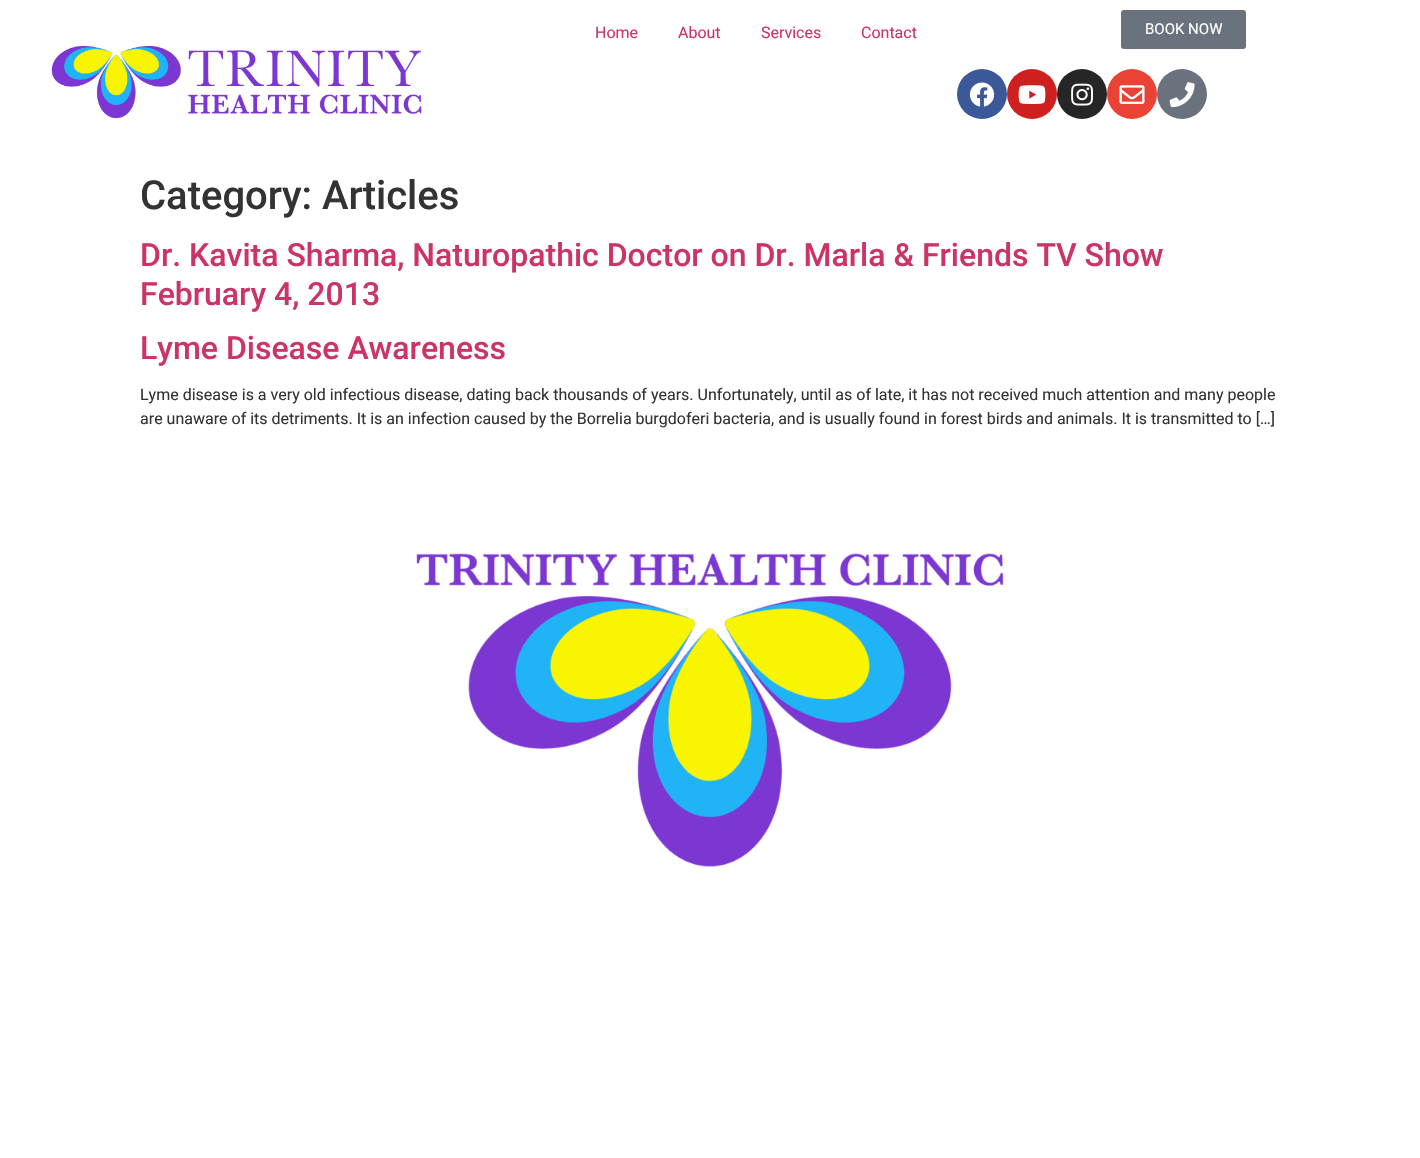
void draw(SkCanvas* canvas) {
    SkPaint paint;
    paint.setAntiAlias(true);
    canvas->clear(0xFFFFFFFF);
    SkFont font1(fontMgr->matchFamilyStyle("Roboto", SkFontStyle::Normal()), 16);
    font1.setSubpixel(true);
    paint.setColor(0xFFCC3366);
    canvas->drawString("Home", 595, 38, font1, paint);
    canvas->drawString("About", 678, 38, font1, paint);
    canvas->drawString("Services", 761, 38, font1, paint);
    canvas->drawString("Contact", 861, 38, font1, paint);
    paint.setColor(0xFF69727D);
    canvas->drawRoundRect(SkRect::MakeXYWH(1121, 10, 125, 39), 3, 3, paint);
    SkFont font2(fontMgr->matchFamilyStyle("Roboto", SkFontStyle::Normal()), 15);
    font2.setSubpixel(true);
    paint.setColor(0xFFFFFFFF);
    canvas->drawString("BOOK NOW", 1145, 34, font2, paint);
    paint.setColor(0xFF3B5998);
    canvas->drawCircle(982, 94, 25, paint);
    canvas->drawImageRect(SkImages::DeferredFromEncodedData(SkData::MakeFromFileName("img1.png")), SkRect::MakeXYWH(969, 82, 26, 25), SkSamplingOptions());
    paint.setColor(0xFFCD201F);
    canvas->drawCircle(1032, 94, 25, paint);
    canvas->drawImageRect(SkImages::DeferredFromEncodedData(SkData::MakeFromFileName("img2.png")), SkRect::MakeXYWH(1018, 85, 28, 19), SkSamplingOptions());
    paint.setColor(0xFF262626);
    canvas->drawCircle(1082, 94, 25, paint);
    canvas->drawImageRect(SkImages::DeferredFromEncodedData(SkData::MakeFromFileName("img3.png")), SkRect::MakeXYWH(1071, 83, 22, 23), SkSamplingOptions());
    paint.setColor(0xFFEA4335);
    canvas->drawCircle(1132, 94, 25, paint);
    canvas->drawImageRect(SkImages::DeferredFromEncodedData(SkData::MakeFromFileName("img4.png")), SkRect::MakeXYWH(1119, 85, 26, 19), SkSamplingOptions());
    paint.setColor(0xFF69727D);
    canvas->drawCircle(1182, 94, 25, paint);
    canvas->drawImageRect(SkImages::DeferredFromEncodedData(SkData::MakeFromFileName("img5.png")), SkRect::MakeXYWH(1169, 82, 26, 26), SkSamplingOptions());
    canvas->drawImageRect(SkImages::DeferredFromEncodedData(SkData::MakeFromFileName("img6.png")), SkRect::MakeXYWH(51, 45, 371, 74), SkSamplingOptions());
    SkFont font3(fontMgr->matchFamilyStyle("Roboto", SkFontStyle(500, SkFontStyle::kNormal_Width, SkFontStyle::kUpright_Slant)), 40);
    font3.setSubpixel(true);
    paint.setColor(0xFF333333);
    canvas->drawString("Category: Articles", 140, 209, font3, paint);
    SkFont font4(fontMgr->matchFamilyStyle("Roboto", SkFontStyle(500, SkFontStyle::kNormal_Width, SkFontStyle::kUpright_Slant)), 32);
    font4.setSubpixel(true);
    paint.setColor(0xFFCC3366);
    canvas->drawString("Dr. Kavita Sharma, Naturopathic Doctor on Dr. Marla & Friends TV Show", 140, 266, font4, paint);
    canvas->drawString("February 4, 2013", 140, 305, font4, paint);
    canvas->drawString("Lyme Disease Awareness", 140, 359, font4, paint);
    paint.setColor(0xFF333333);
    canvas->drawString("Lyme disease is a very old infectious disease, dating back thousands of years. Unfortunately, until as of late, it has not received much attention and many people", 140, 400, font1, paint);
    canvas->drawString("are unaware of its detriments. It is an infection caused by the Borrelia burgdoferi bacteria, and is usually found in forest birds and animals. It is transmitted to […]", 140, 424, font1, paint);
    canvas->drawImageRect(SkImages::DeferredFromEncodedData(SkData::MakeFromFileName("img7.png")), SkRect::MakeXYWH(416, 553, 588, 314), SkSamplingOptions());
}
